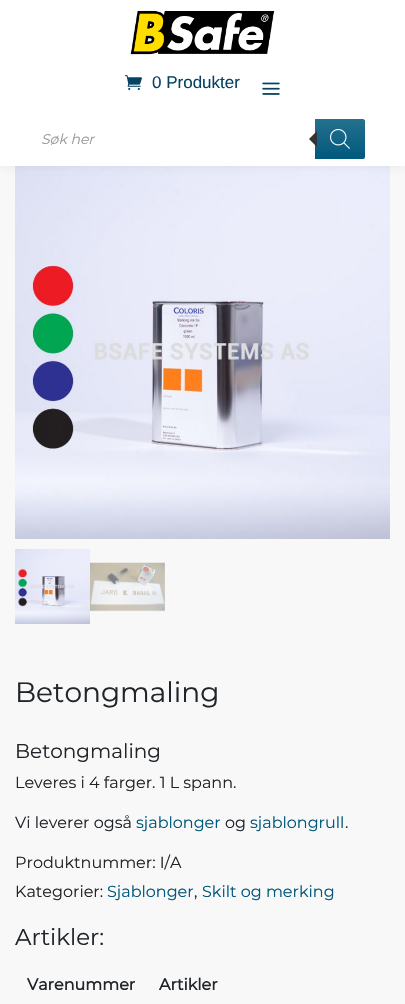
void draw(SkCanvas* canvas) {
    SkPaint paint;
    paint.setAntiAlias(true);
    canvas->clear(0xFFF8F8F8);
    canvas->drawImageRect(SkImages::DeferredFromEncodedData(SkData::MakeFromFileName("img5.png")), SkRect::MakeXYWH(15, 166, 375, 373), SkSamplingOptions());
    paint.setColor(0x4DACABAB);
    paint.setMaskFilter(SkMaskFilter::MakeBlur(kNormal_SkBlurStyle, 5));
    canvas->drawRect(SkRect::MakeXYWH(0, -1, 405, 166), paint);
    paint.setMaskFilter(nullptr);
    paint.setColor(0xFFFFFFFF);
    canvas->drawRect(SkRect::MakeXYWH(0, 0, 405, 166), paint);
    canvas->drawImageRect(SkImages::DeferredFromEncodedData(SkData::MakeFromFileName("img1.png")), SkRect::MakeXYWH(130, 10, 145, 45), SkSamplingOptions());
    canvas->drawImageRect(SkImages::DeferredFromEncodedData(SkData::MakeFromFileName("img2.png")), SkRect::MakeXYWH(125, 75, 17, 15), SkSamplingOptions());
    SkFont font1(fontMgr->matchFamilyStyle("Liberation Sans", SkFontStyle::Normal()), 17);
    font1.setSubpixel(true);
    paint.setColor(0xFF044363);
    canvas->drawString("0 Produkter", 152, 88, font1, paint);
    canvas->drawImageRect(SkImages::DeferredFromEncodedData(SkData::MakeFromFileName("img3.png")), SkRect::MakeXYWH(262, 82, 18, 13), SkSamplingOptions());
    SkFont font2(fontMgr->matchFamilyStyle("Montserrat", SkFontStyle(100, SkFontStyle::kNormal_Width, SkFontStyle::kItalic_Slant)), 14);
    font2.setSubpixel(true);
    paint.setColor(0xFF999999);
    canvas->drawString("Søk her", 41, 144, font2, paint);
    {
        const SkColor colors[] = {0xFF25708F, 0xFF00587C};
        const float stops[] = {0, 1};
        const SkPoint ends[] = {{340, 119}, {340, 159}};
        paint.setShader(SkGradientShader::MakeLinear(ends, colors, stops, 2, SkTileMode::kClamp));
        paint.setAlpha(255);
    }
    canvas->drawPath(SkPathBuilder().moveTo(315, 119).lineTo(363, 119).cubicTo(364, 119, 365, 120, 365, 121).lineTo(365, 157).cubicTo(365, 158, 364, 159, 363, 159).lineTo(315, 159).close().detach(), paint);
    paint.setShader(nullptr);
    paint.setColor(0xFF333333);
    canvas->drawPath(SkPathBuilder().moveTo(317, 131).lineTo(317, 147).lineTo(309, 139).close().detach(), paint);
    canvas->drawImageRect(SkImages::DeferredFromEncodedData(SkData::MakeFromFileName("img4.png")), SkRect::MakeXYWH(330, 129, 20, 20), SkSamplingOptions());
    canvas->drawImageRect(SkImages::DeferredFromEncodedData(SkData::MakeFromFileName("img6.png")), SkRect::MakeXYWH(15, 549, 75, 75), SkSamplingOptions());
    canvas->drawImageRect(SkImages::DeferredFromEncodedData(SkData::MakeFromFileName("img7.png")), SkRect::MakeXYWH(90, 562, 75, 50), SkSamplingOptions());
    SkFont font3(fontMgr->matchFamilyStyle("Montserrat", SkFontStyle(100, SkFontStyle::kNormal_Width, SkFontStyle::kUpright_Slant)), 28);
    font3.setSubpixel(true);
    paint.setColor(0xFF212529);
    canvas->drawString("Betongmaling", 15, 702, font3, paint);
    SkFont font4(fontMgr->matchFamilyStyle("Montserrat", SkFontStyle(100, SkFontStyle::kNormal_Width, SkFontStyle::kUpright_Slant)), 20);
    font4.setSubpixel(true);
    canvas->drawString("Betongmaling", 15, 758, font4, paint);
    SkFont font5(fontMgr->matchFamilyStyle("Montserrat", SkFontStyle(100, SkFontStyle::kNormal_Width, SkFontStyle::kUpright_Slant)), 16);
    font5.setSubpixel(true);
    canvas->drawString("Leveres i 4 farger. 1 L spann.", 15, 788, font5, paint);
    canvas->drawString("Vi leverer også", 15, 828, font5, paint);
    paint.setColor(0xFF00587C);
    canvas->drawString("sjablonger", 136, 828, font5, paint);
    paint.setColor(0xFF212529);
    canvas->drawString("og", 225, 828, font5, paint);
    paint.setColor(0xFF00587C);
    canvas->drawString("sjablongrull", 250, 828, font5, paint);
    paint.setColor(0xFF212529);
    canvas->drawString(".", 345, 828, font5, paint);
    canvas->drawString("Produktnummer: I/A", 15, 868, font5, paint);
    canvas->drawString("Kategorier:", 15, 897, font5, paint);
    paint.setColor(0xFF00587C);
    canvas->drawString("Sjablonger", 107, 897, font5, paint);
    paint.setColor(0xFF212529);
    canvas->drawString(",", 194, 897, font5, paint);
    paint.setColor(0xFF00587C);
    canvas->drawString("Skilt og merking", 202, 897, font5, paint);
    SkFont font6(fontMgr->matchFamilyStyle("Montserrat", SkFontStyle(100, SkFontStyle::kNormal_Width, SkFontStyle::kUpright_Slant)), 23);
    font6.setSubpixel(true);
    paint.setColor(0xFF212529);
    canvas->drawString("Artikler:", 15, 945, font6, paint);
    SkFont font7(fontMgr->matchFamilyStyle("Montserrat", SkFontStyle::Bold()), 16);
    font7.setSubpixel(true);
    canvas->drawString("Varenummer", 27, 990, font7, paint);
    canvas->drawString("Artikler", 159, 990, font7, paint);
}
